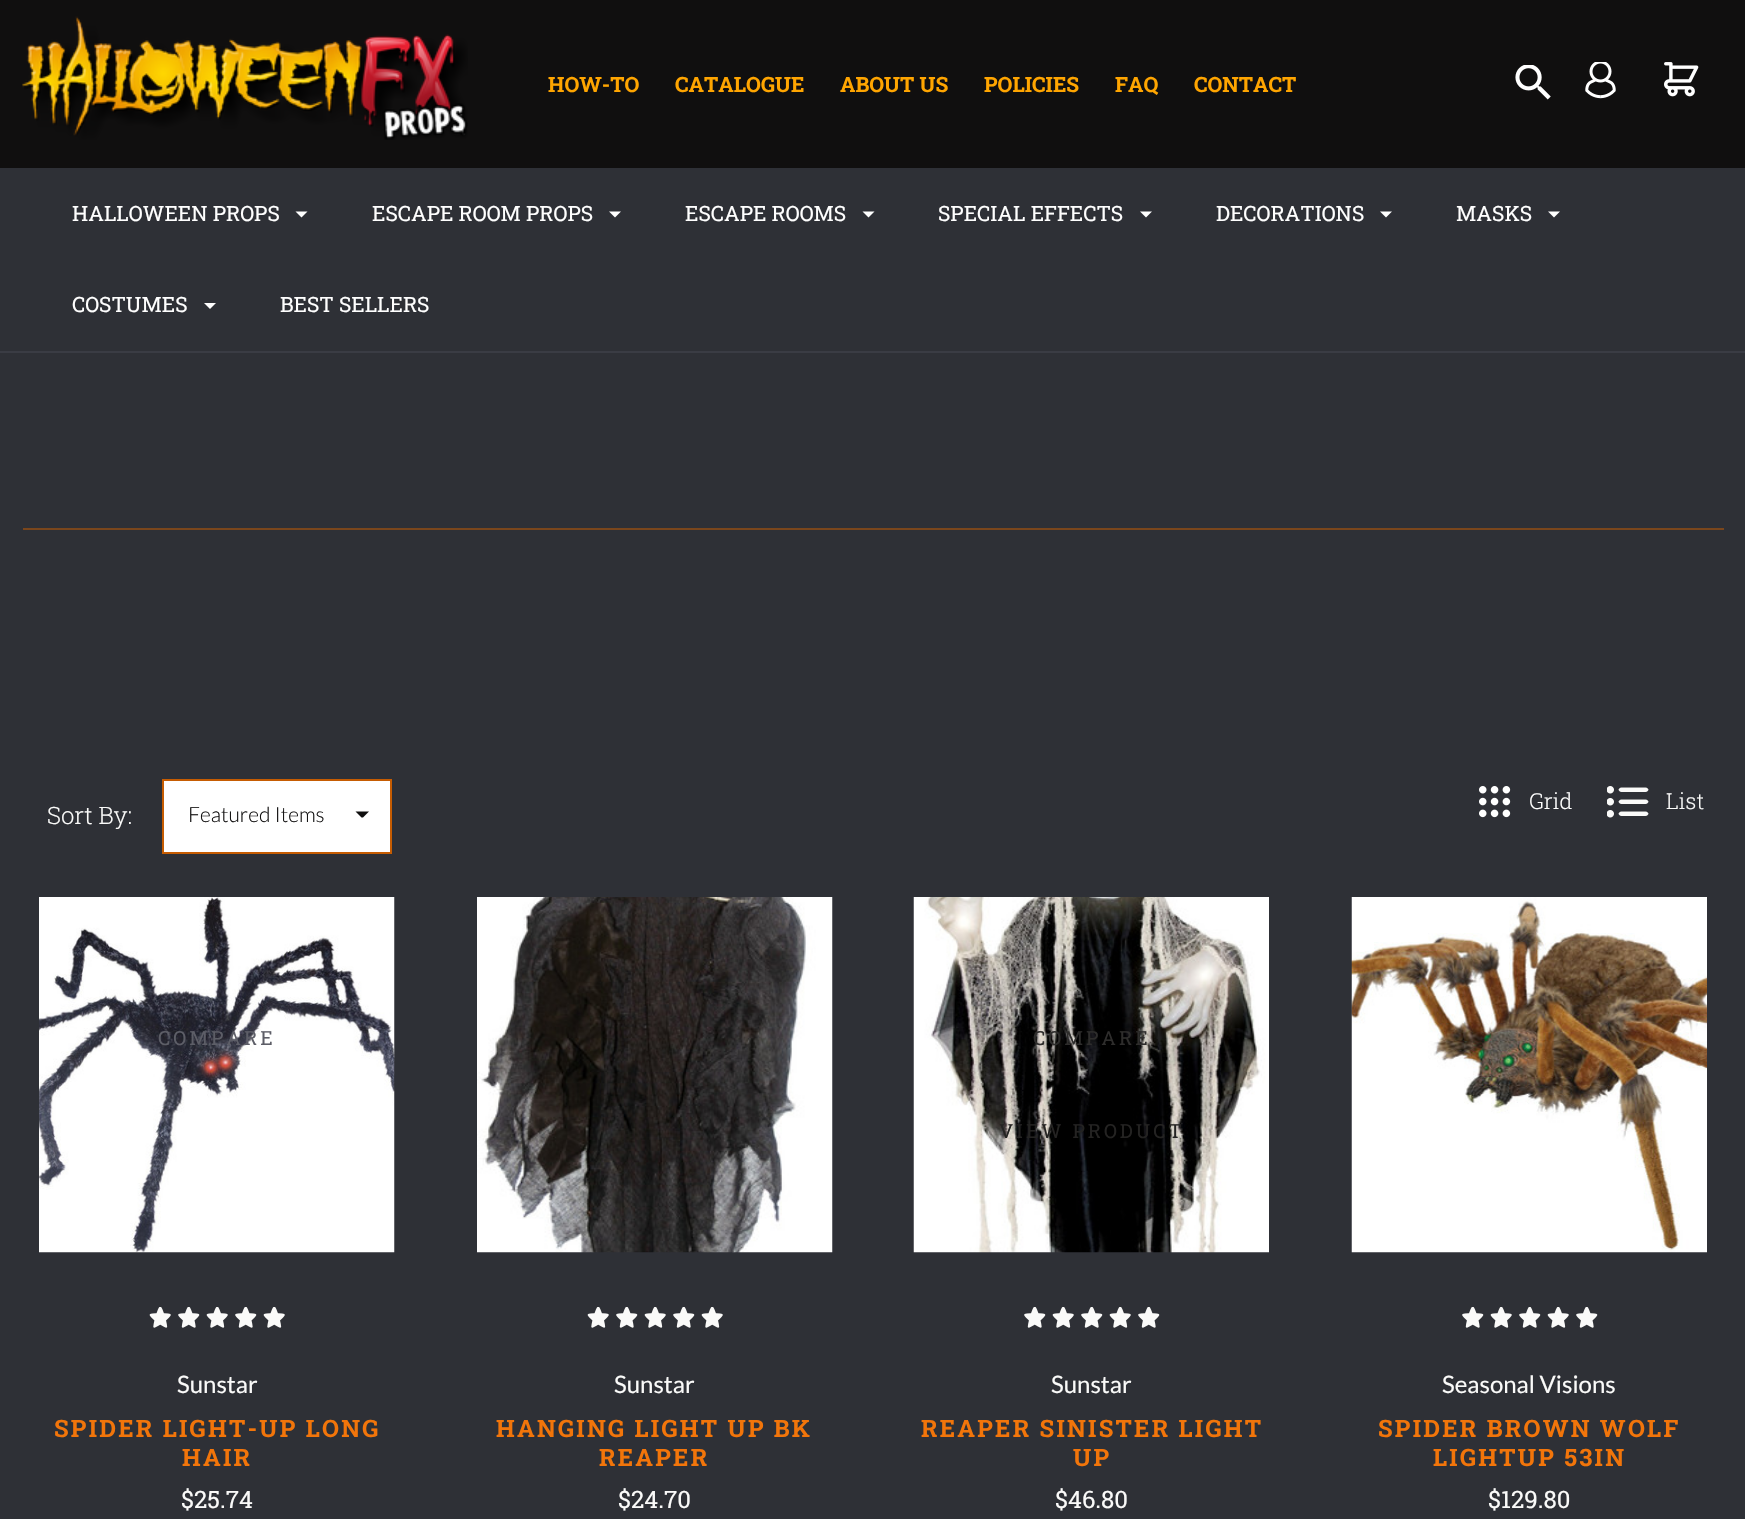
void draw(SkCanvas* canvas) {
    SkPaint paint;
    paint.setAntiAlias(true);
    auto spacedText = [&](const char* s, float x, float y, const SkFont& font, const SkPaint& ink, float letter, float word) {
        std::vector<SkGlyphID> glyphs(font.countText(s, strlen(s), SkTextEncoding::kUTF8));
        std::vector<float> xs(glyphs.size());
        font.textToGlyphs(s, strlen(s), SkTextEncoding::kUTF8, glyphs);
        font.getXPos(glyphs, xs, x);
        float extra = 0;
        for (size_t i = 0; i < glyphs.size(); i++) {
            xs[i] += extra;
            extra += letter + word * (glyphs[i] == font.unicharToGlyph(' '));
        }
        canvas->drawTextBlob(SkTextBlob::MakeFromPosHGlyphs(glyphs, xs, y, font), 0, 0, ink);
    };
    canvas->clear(0xFF2E3036);
    paint.setColor(0xFF100F0F);
    canvas->drawRect(SkRect::MakeXYWH(0, 0, 1745, 168), paint);
    canvas->drawImageRect(SkImages::DeferredFromEncodedData(SkData::MakeFromFileName("img1.png")), SkRect::MakeXYWH(22, 16, 446, 124), SkSamplingOptions());
    SkFont font1(fontMgr->matchFamilyStyle("Roboto Slab", SkFontStyle::Bold()), 21);
    font1.setSubpixel(true);
    paint.setColor(0xFFFFA500);
    canvas->drawString("HOW-TO", 548, 92, font1, paint);
    canvas->drawString("CATALOGUE", 675, 92, font1, paint);
    canvas->drawString("ABOUT US", 840, 92, font1, paint);
    canvas->drawString("POLICIES", 984, 92, font1, paint);
    canvas->drawString("FAQ", 1115, 92, font1, paint);
    canvas->drawString("CONTACT", 1194, 92, font1, paint);
    canvas->drawImageRect(SkImages::DeferredFromEncodedData(SkData::MakeFromFileName("img2.png")), SkRect::MakeXYWH(1515, 65, 36, 35), SkSamplingOptions());
    canvas->drawImageRect(SkImages::DeferredFromEncodedData(SkData::MakeFromFileName("img3.png")), SkRect::MakeXYWH(1585, 62, 31, 37), SkSamplingOptions());
    canvas->drawImageRect(SkImages::DeferredFromEncodedData(SkData::MakeFromFileName("img4.png")), SkRect::MakeXYWH(1664, 62, 35, 35), SkSamplingOptions());
    paint.setColor(0xFF3A3C44);
    canvas->drawRect(SkRect::MakeXYWH(0, 351, 1745, 2), paint);
    SkFont font2(fontMgr->matchFamilyStyle("Roboto Slab", SkFontStyle::Normal()), 21);
    font2.setSubpixel(true);
    paint.setColor(0xFFFFFFFF);
    canvas->drawString("HALLOWEEN PROPS", 72, 221, font2, paint);
    canvas->drawPath(SkPathBuilder().moveTo(295.5f, 211.5f).lineTo(307.5f, 211.5f).lineTo(301.5f, 217.5f).close().detach(), paint);
    canvas->drawString("ESCAPE ROOM PROPS", 372, 221, font2, paint);
    canvas->drawPath(SkPathBuilder().moveTo(609, 211.5f).lineTo(621, 211.5f).lineTo(615, 217.5f).close().detach(), paint);
    canvas->drawString("ESCAPE ROOMS", 685, 221, font2, paint);
    canvas->drawPath(SkPathBuilder().moveTo(862.5f, 211.5f).lineTo(874.5f, 211.5f).lineTo(868.5f, 217.5f).close().detach(), paint);
    canvas->drawString("SPECIAL EFFECTS", 938, 221, font2, paint);
    canvas->drawPath(SkPathBuilder().moveTo(1140, 211.5f).lineTo(1152, 211.5f).lineTo(1146, 217.5f).close().detach(), paint);
    canvas->drawString("DECORATIONS", 1216, 221, font2, paint);
    canvas->drawPath(SkPathBuilder().moveTo(1380, 211.5f).lineTo(1392, 211.5f).lineTo(1386, 217.5f).close().detach(), paint);
    canvas->drawString("MASKS", 1456, 221, font2, paint);
    canvas->drawPath(SkPathBuilder().moveTo(1548, 211.5f).lineTo(1560, 211.5f).lineTo(1554, 217.5f).close().detach(), paint);
    canvas->drawString("COSTUMES", 72, 312, font2, paint);
    canvas->drawPath(SkPathBuilder().moveTo(204, 303).lineTo(216, 303).lineTo(210, 309).close().detach(), paint);
    canvas->drawString("BEST SELLERS", 280, 312, font2, paint);
    paint.setColor(0xFF7A461C);
    canvas->drawRect(SkRect::MakeXYWH(23, 528, 1701, 2), paint);
    canvas->drawImageRect(SkImages::DeferredFromEncodedData(SkData::MakeFromFileName("img5.png")), SkRect::MakeXYWH(1479, 786, 32, 32), SkSamplingOptions());
    SkFont font3(fontMgr->matchFamilyStyle("Roboto Slab", SkFontStyle(300, SkFontStyle::kNormal_Width, SkFontStyle::kUpright_Slant)), 22);
    font3.setSubpixel(true);
    paint.setColor(0xFFFFFFFF);
    canvas->drawString("Grid", 1529, 809, font3, paint);
    canvas->drawImageRect(SkImages::DeferredFromEncodedData(SkData::MakeFromFileName("img6.png")), SkRect::MakeXYWH(1607, 786, 42, 32), SkSamplingOptions());
    paint.setColor(0xFFFAFAF9);
    canvas->drawString("List", 1666, 809, font3, paint);
    canvas->drawImageRect(SkImages::DeferredFromEncodedData(SkData::MakeFromFileName("img7.png")), SkRect::MakeXYWH(39, 897, 356, 356), SkSamplingOptions());
    SkFont font4(fontMgr->matchFamilyStyle("Roboto Slab", SkFontStyle::Normal()), 19.5f);
    font4.setSubpixel(true);
    paint.setColor(0xFF5D5E67);
    spacedText("COMPARE", 158, 1045, font4, paint, 3, 0);
    canvas->drawImageRect(SkImages::DeferredFromEncodedData(SkData::MakeFromFileName("img8.png")), SkRect::MakeXYWH(149, 1307, 22, 21), SkSamplingOptions());
    canvas->drawImageRect(SkImages::DeferredFromEncodedData(SkData::MakeFromFileName("img9.png")), SkRect::MakeXYWH(178, 1307, 22, 21), SkSamplingOptions());
    canvas->drawImageRect(SkImages::DeferredFromEncodedData(SkData::MakeFromFileName("img8.png")), SkRect::MakeXYWH(206, 1307, 22, 21), SkSamplingOptions());
    canvas->drawImageRect(SkImages::DeferredFromEncodedData(SkData::MakeFromFileName("img9.png")), SkRect::MakeXYWH(235, 1307, 22, 21), SkSamplingOptions());
    canvas->drawImageRect(SkImages::DeferredFromEncodedData(SkData::MakeFromFileName("img8.png")), SkRect::MakeXYWH(263, 1307, 22, 21), SkSamplingOptions());
    SkFont font5(fontMgr->matchFamilyStyle("Lato", SkFontStyle::Normal()), 24);
    font5.setSubpixel(true);
    paint.setColor(0xFFFAFAF9);
    canvas->drawString("Sunstar", 177, 1393, font5, paint);
    SkFont font6(fontMgr->matchFamilyStyle("Roboto Slab", SkFontStyle::Bold()), 24);
    font6.setSubpixel(true);
    paint.setColor(0xFFF2750A);
    spacedText("SPIDER LIGHT-UP LONG", 54, 1437, font6, paint, 2.25f, 0);
    spacedText("HAIR", 182, 1466, font6, paint, 2.25f, 0);
    SkFont font7(fontMgr->matchFamilyStyle("Roboto Slab", SkFontStyle::Normal()), 24);
    font7.setSubpixel(true);
    paint.setColor(0xFFFAFAF9);
    canvas->drawString("$25.74", 181, 1508, font7, paint);
    canvas->drawImageRect(SkImages::DeferredFromEncodedData(SkData::MakeFromFileName("img10.png")), SkRect::MakeXYWH(477, 897, 356, 356), SkSamplingOptions());
    canvas->drawImageRect(SkImages::DeferredFromEncodedData(SkData::MakeFromFileName("img8.png")), SkRect::MakeXYWH(587, 1307, 22, 21), SkSamplingOptions());
    canvas->drawImageRect(SkImages::DeferredFromEncodedData(SkData::MakeFromFileName("img9.png")), SkRect::MakeXYWH(616, 1307, 22, 21), SkSamplingOptions());
    canvas->drawImageRect(SkImages::DeferredFromEncodedData(SkData::MakeFromFileName("img8.png")), SkRect::MakeXYWH(644, 1307, 22, 21), SkSamplingOptions());
    canvas->drawImageRect(SkImages::DeferredFromEncodedData(SkData::MakeFromFileName("img9.png")), SkRect::MakeXYWH(673, 1307, 22, 21), SkSamplingOptions());
    canvas->drawImageRect(SkImages::DeferredFromEncodedData(SkData::MakeFromFileName("img8.png")), SkRect::MakeXYWH(701, 1307, 22, 21), SkSamplingOptions());
    canvas->drawString("Sunstar", 614, 1393, font5, paint);
    paint.setColor(0xFFF2750A);
    spacedText("HANGING LIGHT UP BK", 496, 1437, font6, paint, 2.25f, 0);
    spacedText("REAPER", 599, 1466, font6, paint, 2.25f, 0);
    paint.setColor(0xFFFAFAF9);
    canvas->drawString("$24.70", 618, 1508, font7, paint);
    canvas->drawImageRect(SkImages::DeferredFromEncodedData(SkData::MakeFromFileName("img11.png")), SkRect::MakeXYWH(913, 897, 356, 356), SkSamplingOptions());
    paint.setColor(0xFF2E2D2C);
    spacedText("COMPARE", 1033, 1045, font4, paint, 3, 0);
    paint.setColor(0xFF242322);
    spacedText("VIEW PRODUCT", 999, 1138, font4, paint, 3, 0);
    canvas->drawImageRect(SkImages::DeferredFromEncodedData(SkData::MakeFromFileName("img9.png")), SkRect::MakeXYWH(1024, 1307, 22, 21), SkSamplingOptions());
    canvas->drawImageRect(SkImages::DeferredFromEncodedData(SkData::MakeFromFileName("img8.png")), SkRect::MakeXYWH(1052, 1307, 22, 21), SkSamplingOptions());
    canvas->drawImageRect(SkImages::DeferredFromEncodedData(SkData::MakeFromFileName("img9.png")), SkRect::MakeXYWH(1081, 1307, 22, 21), SkSamplingOptions());
    canvas->drawImageRect(SkImages::DeferredFromEncodedData(SkData::MakeFromFileName("img8.png")), SkRect::MakeXYWH(1109, 1307, 22, 21), SkSamplingOptions());
    canvas->drawImageRect(SkImages::DeferredFromEncodedData(SkData::MakeFromFileName("img9.png")), SkRect::MakeXYWH(1138, 1307, 22, 21), SkSamplingOptions());
    paint.setColor(0xFFFAFAF9);
    canvas->drawString("Sunstar", 1051, 1393, font5, paint);
    paint.setColor(0xFFF2750A);
    spacedText("REAPER SINISTER LIGHT", 921, 1437, font6, paint, 2.25f, 0);
    spacedText("UP", 1073, 1466, font6, paint, 2.25f, 0);
    paint.setColor(0xFFFAFAF9);
    canvas->drawString("$46.80", 1055, 1508, font7, paint);
    canvas->drawImageRect(SkImages::DeferredFromEncodedData(SkData::MakeFromFileName("img12.png")), SkRect::MakeXYWH(1351, 897, 356, 356), SkSamplingOptions());
    canvas->drawImageRect(SkImages::DeferredFromEncodedData(SkData::MakeFromFileName("img9.png")), SkRect::MakeXYWH(1462, 1307, 22, 21), SkSamplingOptions());
    canvas->drawImageRect(SkImages::DeferredFromEncodedData(SkData::MakeFromFileName("img8.png")), SkRect::MakeXYWH(1490, 1307, 22, 21), SkSamplingOptions());
    canvas->drawImageRect(SkImages::DeferredFromEncodedData(SkData::MakeFromFileName("img9.png")), SkRect::MakeXYWH(1519, 1307, 22, 21), SkSamplingOptions());
    canvas->drawImageRect(SkImages::DeferredFromEncodedData(SkData::MakeFromFileName("img8.png")), SkRect::MakeXYWH(1547, 1307, 22, 21), SkSamplingOptions());
    canvas->drawImageRect(SkImages::DeferredFromEncodedData(SkData::MakeFromFileName("img9.png")), SkRect::MakeXYWH(1576, 1307, 22, 21), SkSamplingOptions());
    canvas->drawString("Seasonal Visions", 1442, 1393, font5, paint);
    paint.setColor(0xFFF2750A);
    spacedText("SPIDER BROWN WOLF", 1378, 1437, font6, paint, 2.25f, 0);
    spacedText("LIGHTUP 53IN", 1433, 1466, font6, paint, 2.25f, 0);
    paint.setColor(0xFFFAFAF9);
    canvas->drawString("$129.80", 1488, 1508, font7, paint);
    SkFont font8(fontMgr->matchFamilyStyle("Roboto Slab", SkFontStyle(300, SkFontStyle::kNormal_Width, SkFontStyle::kUpright_Slant)), 24);
    font8.setSubpixel(true);
    canvas->drawString("Sort By:", 47, 824, font8, paint);
    paint.setColor(0xFFFFFFFF);
    canvas->drawRect(SkRect::MakeXYWH(163, 780, 228, 73), paint);
    paint.setStyle(SkPaint::kStroke_Style);
    paint.setStrokeWidth(2);
    paint.setColor(0xFFC65C02);
    canvas->drawRect(SkRect::MakeXYWH(163, 780, 228, 73), paint);
    SkFont font9(fontMgr->matchFamilyStyle("Lato", SkFontStyle(300, SkFontStyle::kNormal_Width, SkFontStyle::kUpright_Slant)), 21);
    font9.setSubpixel(true);
    paint.setStyle(SkPaint::kFill_Style);
    paint.setColor(0xFF100F0F);
    canvas->drawString("Featured Items", 188, 822, font9, paint);
    canvas->drawPath(SkPathBuilder().moveTo(355.5f, 811.5f).lineTo(369, 811.5f).lineTo(363, 817.5f).lineTo(361.5f, 817.5f).close().detach(), paint);
}
